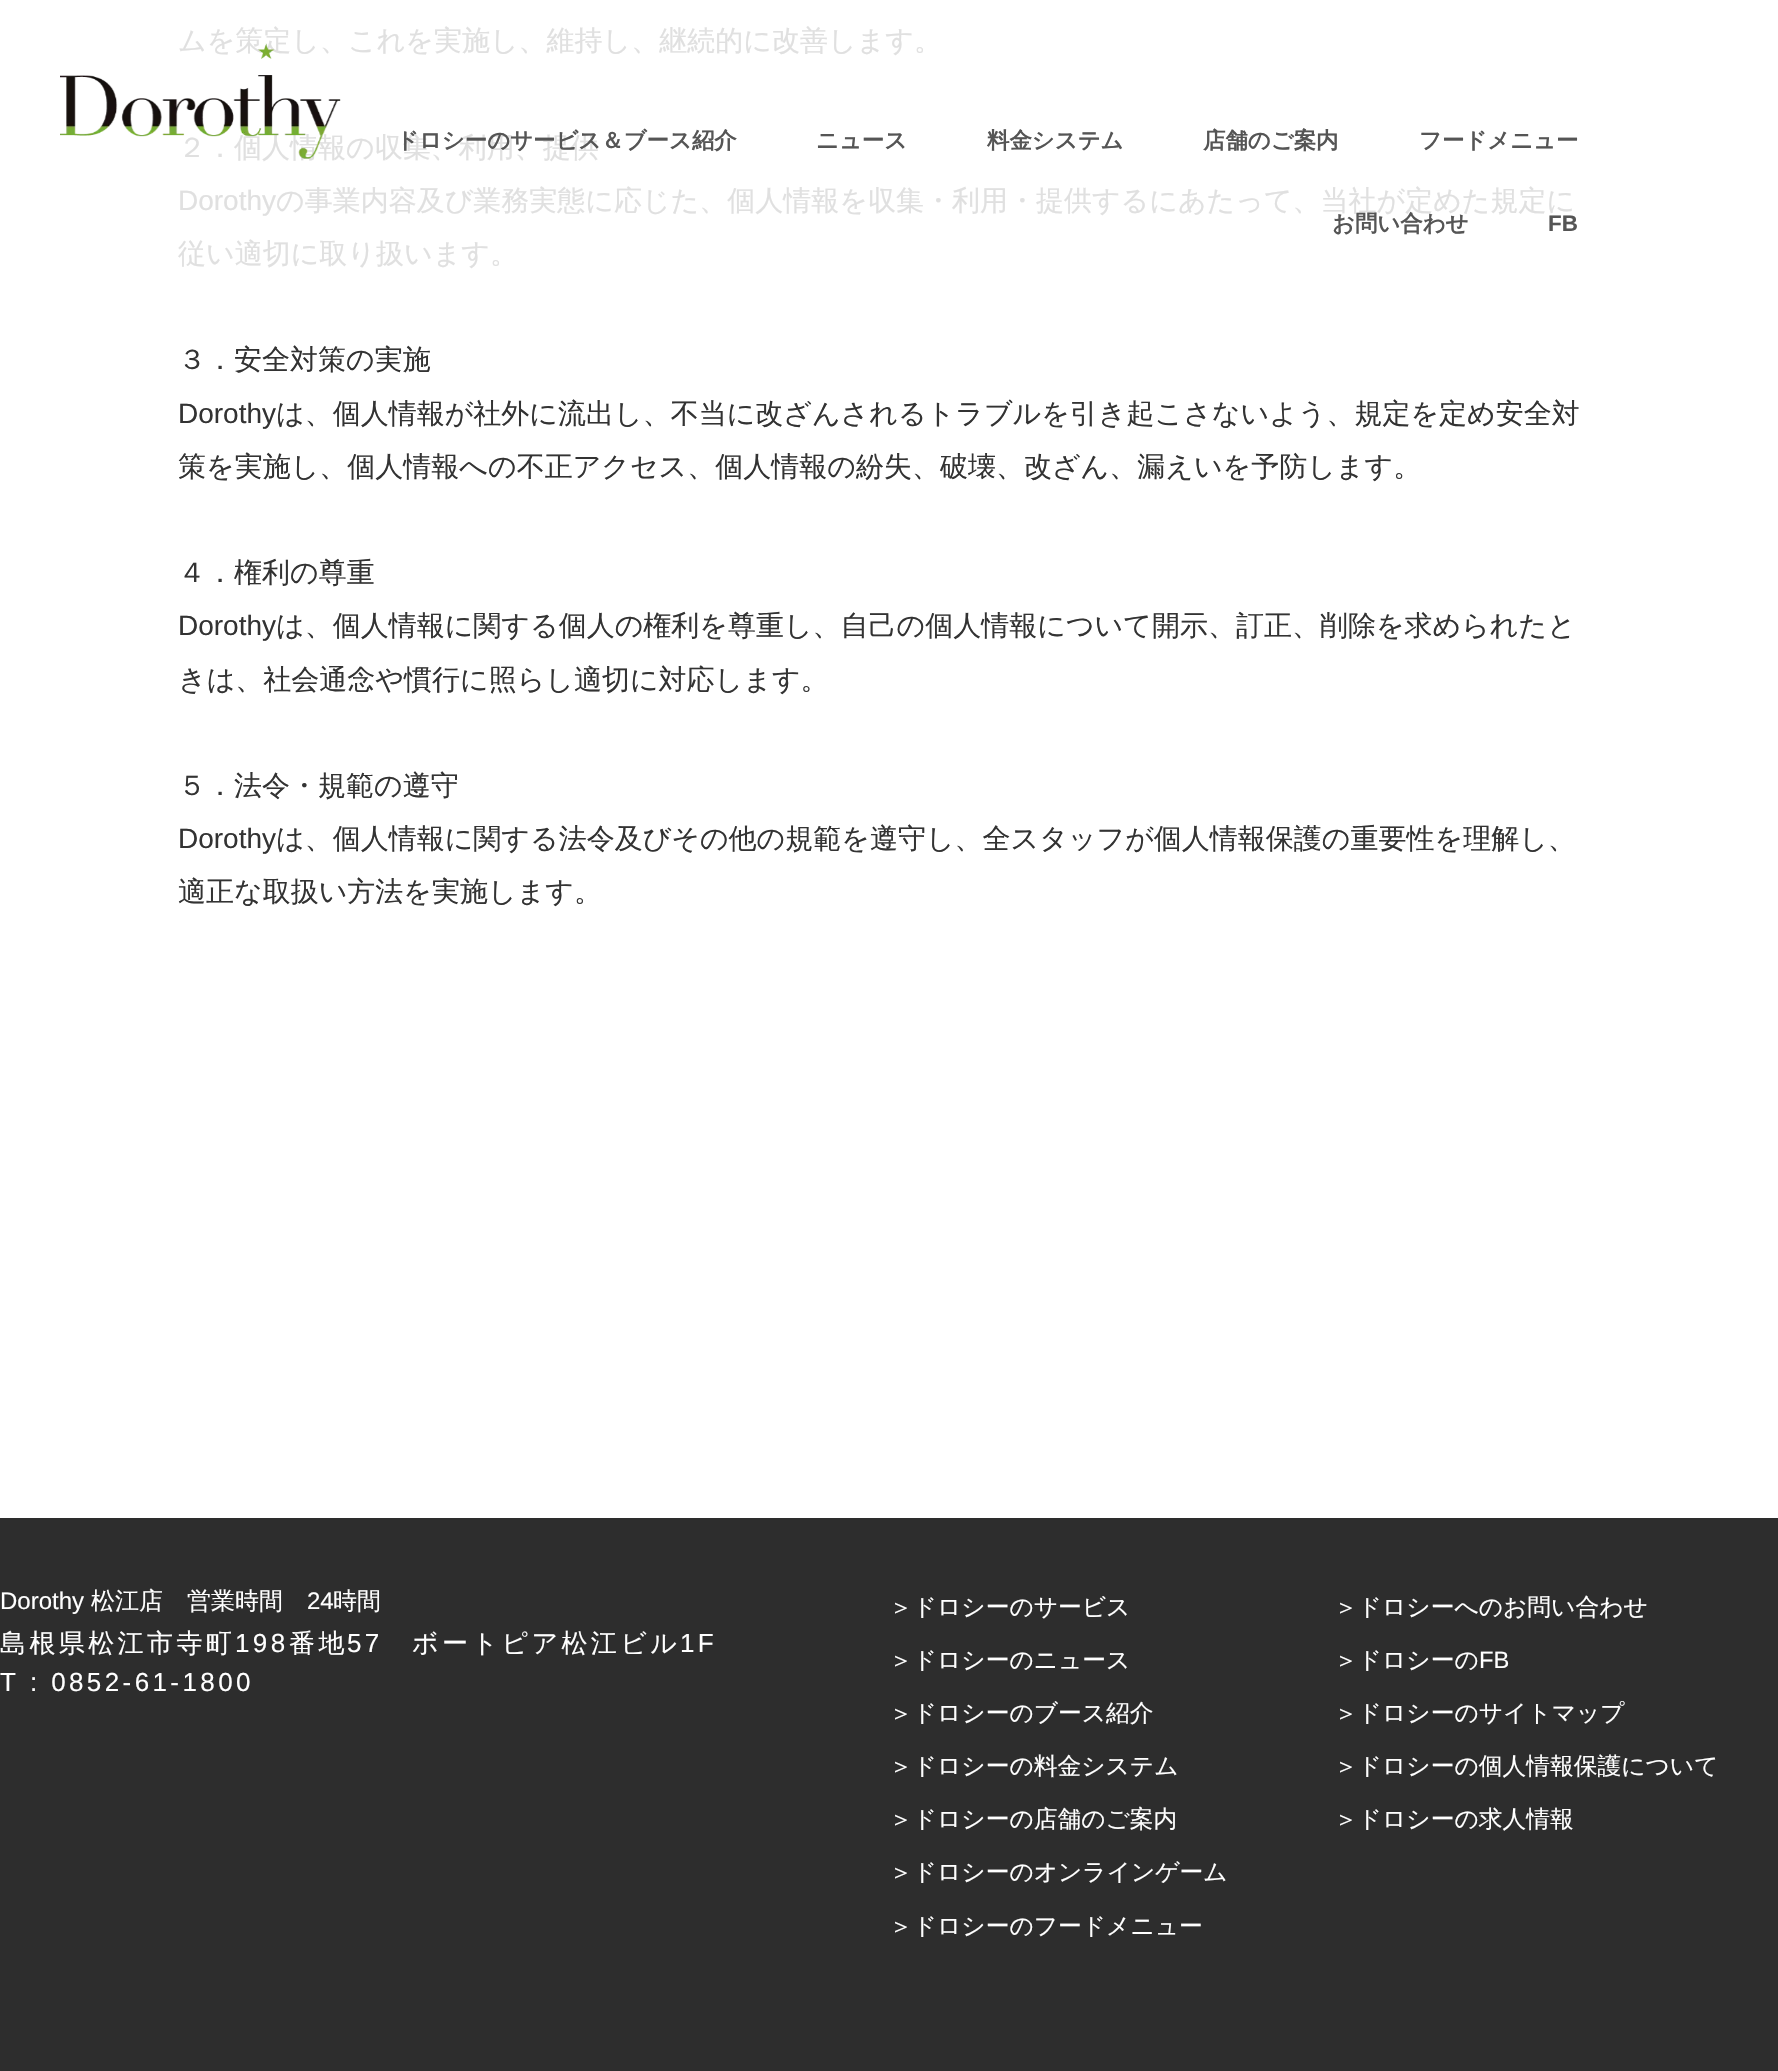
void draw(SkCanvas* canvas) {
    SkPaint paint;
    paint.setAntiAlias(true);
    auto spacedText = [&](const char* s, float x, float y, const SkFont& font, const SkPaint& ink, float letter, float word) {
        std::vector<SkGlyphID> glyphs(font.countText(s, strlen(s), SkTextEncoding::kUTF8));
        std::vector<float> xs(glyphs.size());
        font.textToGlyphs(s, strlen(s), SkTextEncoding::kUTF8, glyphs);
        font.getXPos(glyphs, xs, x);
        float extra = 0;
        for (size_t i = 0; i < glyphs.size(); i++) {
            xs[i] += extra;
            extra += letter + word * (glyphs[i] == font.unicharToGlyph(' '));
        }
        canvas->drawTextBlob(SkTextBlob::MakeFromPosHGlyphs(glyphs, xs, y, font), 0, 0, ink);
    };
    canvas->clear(0xFFFFFFFF);
    SkFont font1(fontMgr->matchFamilyStyle("WenQuanYi Zen Hei", SkFontStyle(500, SkFontStyle::kNormal_Width, SkFontStyle::kUpright_Slant)), 28);
    font1.setSubpixel(true);
    paint.setColor(0xFFE0E0E0);
    canvas->drawString("ムを策定し、これを実施し、維持し、継続的に改善します。", 178, 50, font1, paint);
    canvas->drawString("２．個人情報の収集、利用、提供", 178, 157, font1, paint);
    SkFont font2(fontMgr->matchFamilyStyle("Liberation Sans", SkFontStyle::Normal()), 28);
    font2.setSubpixel(true);
    canvas->drawString("Dorothy", 178, 210, font2, paint);
    canvas->drawString("の事業内容及び業務実態に応じた、個人情報を収集・利用・提供するにあたって、当社が定めた規定に", 276, 210, font1, paint);
    canvas->drawString("従い適切に取り扱います。", 178, 263, font1, paint);
    paint.setColor(0xFF333333);
    canvas->drawString("３．安全対策の実施", 178, 369, font1, paint);
    canvas->drawString("Dorothy", 178, 423, font2, paint);
    canvas->drawString("は、個人情報が社外に流出し、不当に改ざんされるトラブルを引き起こさないよう、規定を定め安全対", 276, 423, font1, paint);
    canvas->drawString("策を実施し、個人情報への不正アクセス、個人情報の紛失、破壊、改ざん、漏えいを予防します。", 178, 476, font1, paint);
    canvas->drawString("４．権利の尊重", 178, 582, font1, paint);
    canvas->drawString("Dorothy", 178, 635, font2, paint);
    canvas->drawString("は、個人情報に関する個人の権利を尊重し、自己の個人情報について開示、訂正、削除を求められたと", 276, 635, font1, paint);
    canvas->drawString("きは、社会通念や慣行に照らし適切に対応します。", 178, 689, font1, paint);
    canvas->drawString("５．法令・規範の遵守", 178, 795, font1, paint);
    canvas->drawString("Dorothy", 178, 848, font2, paint);
    canvas->drawString("は、個人情報に関する法令及びその他の規範を遵守し、全スタッフが個人情報保護の重要性を理解し、", 276, 848, font1, paint);
    canvas->drawString("適正な取扱い方法を実施します。", 178, 901, font1, paint);
    canvas->drawImageRect(SkImages::DeferredFromEncodedData(SkData::MakeFromFileName("img1.png")), SkRect::MakeXYWH(60, 43, 281, 116), SkSamplingOptions());
    SkFont font3(fontMgr->matchFamilyStyle("WenQuanYi Zen Hei", SkFontStyle::Bold()), 22.4f);
    font3.setSubpixel(true);
    paint.setColor(0xFF555555);
    canvas->drawString("ドロシーのサービス＆ブース紹介", 396, 148, font3, paint);
    canvas->drawString("ニュース", 816, 148, font3, paint);
    canvas->drawString("料金システム", 987, 148, font3, paint);
    canvas->drawString("店舗のご案内", 1203, 148, font3, paint);
    canvas->drawString("フードメニュー", 1419, 148, font3, paint);
    canvas->drawString("お問い合わせ", 1332, 231, font3, paint);
    SkFont font4(fontMgr->matchFamilyStyle("Liberation Sans", SkFontStyle::Bold()), 22.4f);
    font4.setSubpixel(true);
    canvas->drawString("FB", 1548, 231, font4, paint);
    paint.setColor(0xFF2D2D2D);
    canvas->drawRect(SkRect::MakeXYWH(0, 1518, 1778, 553), paint);
    SkFont font5(fontMgr->matchFamilyStyle("Liberation Sans", SkFontStyle::Normal()), 24);
    font5.setSubpixel(true);
    paint.setColor(0xFFFFFFFF);
    canvas->drawString("Dorothy", 0, 1609, font5, paint);
    SkFont font6(fontMgr->matchFamilyStyle("WenQuanYi Zen Hei", SkFontStyle(500, SkFontStyle::kNormal_Width, SkFontStyle::kUpright_Slant)), 24);
    font6.setSubpixel(true);
    canvas->drawString("松江店　営業時間", 91, 1609, font6, paint);
    canvas->drawString("24", 307, 1609, font5, paint);
    canvas->drawString("時間", 333, 1609, font6, paint);
    SkFont font7(fontMgr->matchFamilyStyle("WenQuanYi Zen Hei", SkFontStyle(500, SkFontStyle::kNormal_Width, SkFontStyle::kUpright_Slant)), 26);
    font7.setSubpixel(true);
    spacedText("島根県松江市寺町", 0, 1652, font7, paint, 3.4f, 0);
    SkFont font8(fontMgr->matchFamilyStyle("Liberation Sans", SkFontStyle::Normal()), 26);
    font8.setSubpixel(true);
    spacedText("198", 235, 1652, font8, paint, 3.4f, 0);
    spacedText("番地", 289, 1652, font7, paint, 3.4f, 0);
    spacedText("57", 347, 1652, font8, paint, 3.4f, 0);
    spacedText("ボートピア松江ビル", 412, 1652, font7, paint, 3.4f, 0);
    spacedText("1F", 680, 1652, font8, paint, 3.4f, 0);
    spacedText("T : 0852-61-1800", 0, 1691, font8, paint, 3.4f, 0);
    SkFont font9(fontMgr->matchFamilyStyle("WenQuanYi Zen Hei", SkFontStyle(500, SkFontStyle::kNormal_Width, SkFontStyle::kUpright_Slant)), 23.75f);
    font9.setSubpixel(true);
    canvas->drawString("＞ドロシーのサービス", 889, 1615, font9, paint);
    canvas->drawString("＞ドロシーのニュース", 889, 1668, font9, paint);
    canvas->drawString("＞ドロシーのブース紹介", 889, 1721, font9, paint);
    canvas->drawString("＞ドロシーの料金システム", 889, 1774, font9, paint);
    canvas->drawString("＞ドロシーの店舗のご案内", 889, 1827, font9, paint);
    canvas->drawString("＞ドロシーのオンラインゲーム", 889, 1880, font9, paint);
    canvas->drawString("＞ドロシーのフードメニュー", 889, 1934, font9, paint);
    canvas->drawString("＞ドロシーへのお問い合わせ", 1334, 1615, font9, paint);
    canvas->drawString("＞ドロシーの", 1334, 1668, font9, paint);
    SkFont font10(fontMgr->matchFamilyStyle("Liberation Sans", SkFontStyle::Normal()), 23.75f);
    font10.setSubpixel(true);
    canvas->drawString("FB", 1479, 1668, font10, paint);
    canvas->drawString("＞ドロシーのサイトマップ", 1334, 1721, font9, paint);
    canvas->drawString("＞ドロシーの個人情報保護について", 1334, 1774, font9, paint);
    canvas->drawString("＞ドロシーの求人情報", 1334, 1827, font9, paint);
}
